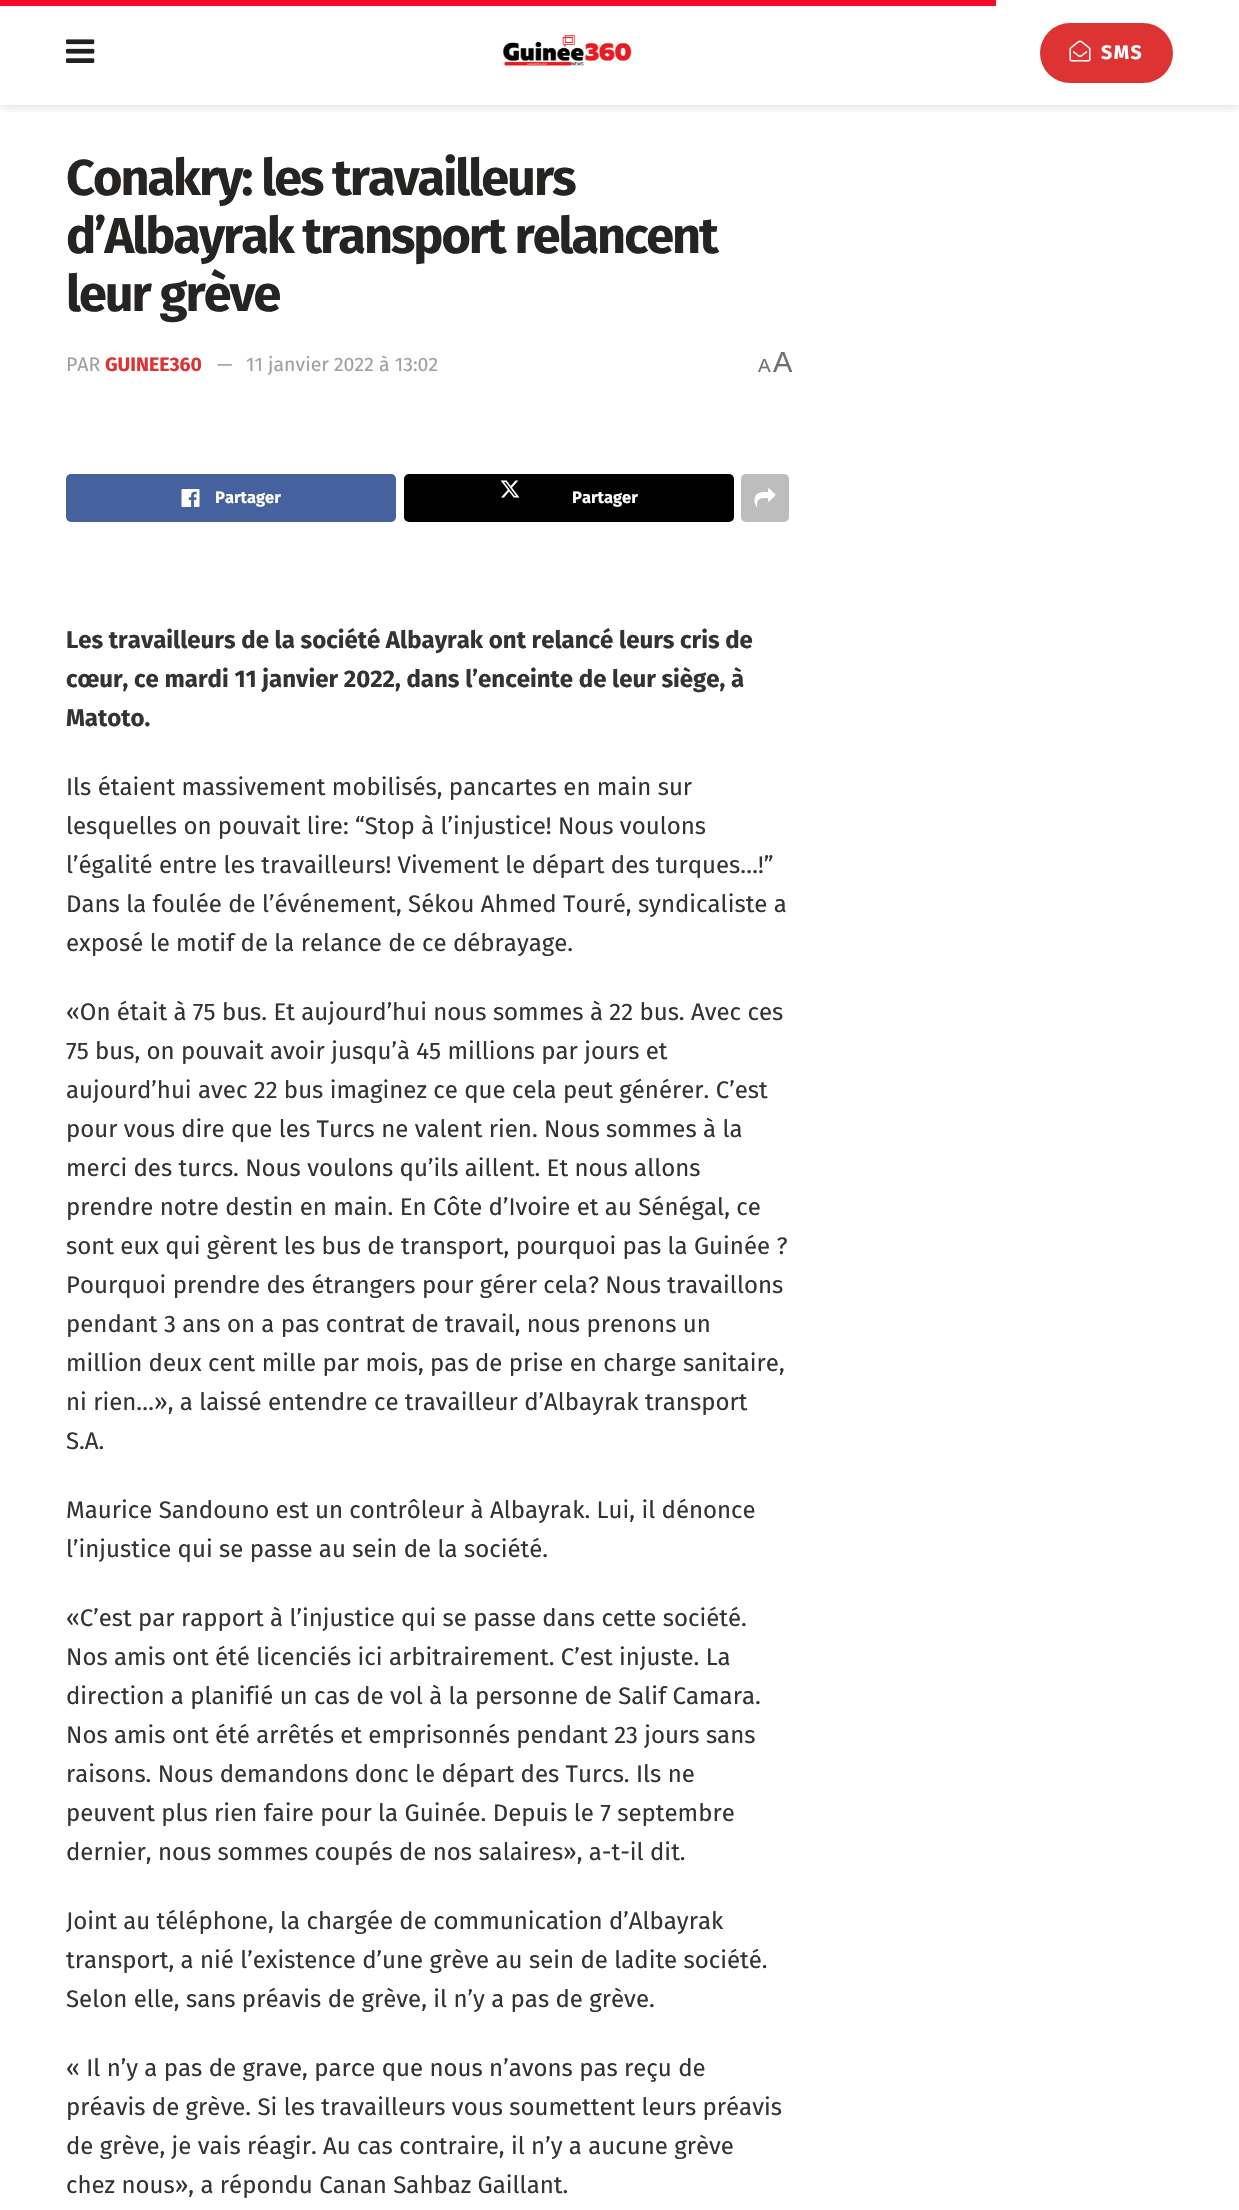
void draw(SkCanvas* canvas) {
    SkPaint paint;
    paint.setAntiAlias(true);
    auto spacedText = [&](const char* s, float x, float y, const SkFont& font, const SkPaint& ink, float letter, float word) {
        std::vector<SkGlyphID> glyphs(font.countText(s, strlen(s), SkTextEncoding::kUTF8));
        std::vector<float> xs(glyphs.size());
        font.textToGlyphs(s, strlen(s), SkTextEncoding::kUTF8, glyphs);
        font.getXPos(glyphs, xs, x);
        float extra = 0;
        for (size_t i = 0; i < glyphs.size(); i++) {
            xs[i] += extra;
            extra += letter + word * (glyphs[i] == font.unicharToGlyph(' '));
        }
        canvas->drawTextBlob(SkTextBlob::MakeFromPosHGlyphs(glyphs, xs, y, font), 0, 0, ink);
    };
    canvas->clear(0xFFFFFFFF);
    canvas->save();
    canvas->clipRect(SkRect::MakeXYWH(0, 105, 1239, 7));
    paint.setColor(0x1A000000);
    paint.setMaskFilter(SkMaskFilter::MakeBlur(kNormal_SkBlurStyle, 4.5f));
    canvas->drawRect(SkRect::MakeXYWH(0, 3, 1239, 105), paint);
    paint.setMaskFilter(nullptr);
    canvas->restore();
    paint.setColor(0xFFF70D28);
    canvas->drawRect(SkRect::MakeXYWH(0, 0, 996, 6), paint);
    canvas->drawImageRect(SkImages::DeferredFromEncodedData(SkData::MakeFromFileName("img1.png")), SkRect::MakeXYWH(66, 39, 29, 24), SkSamplingOptions());
    canvas->drawImageRect(SkImages::DeferredFromEncodedData(SkData::MakeFromFileName("img2.png")), SkRect::MakeXYWH(502, 35, 130, 31), SkSamplingOptions());
    paint.setColor(0xFFDD3333);
    canvas->drawRoundRect(SkRect::MakeXYWH(1040, 23, 133, 60), 30, 30, paint);
    canvas->drawImageRect(SkImages::DeferredFromEncodedData(SkData::MakeFromFileName("img3.png")), SkRect::MakeXYWH(1069, 40, 22, 22), SkSamplingOptions());
    SkFont font1(fontMgr->matchFamilyStyle("Fira Sans", SkFontStyle::Bold()), 19.5f);
    font1.setSubpixel(true);
    paint.setColor(0xFFFFFFFF);
    spacedText("SMS", 1101, 59, font1, paint, 1.5f, 0);
    SkFont font2(fontMgr->matchFamilyStyle("Fira Sans", SkFontStyle::Bold()), 50.4f);
    font2.setSubpixel(true);
    paint.setColor(0xFF252422);
    spacedText("Conakry: les travailleurs", 66, 195, font2, paint, -2, 0);
    spacedText("d’Albayrak transport relancent", 66, 253, font2, paint, -2, 0);
    spacedText("leur grève", 66, 311, font2, paint, -2, 0);
    SkFont font3(fontMgr->matchFamilyStyle("Fira Sans", SkFontStyle::Normal()), 19.5f);
    font3.setSubpixel(true);
    paint.setColor(0xFFA0A0A0);
    canvas->drawString("PAR", 66, 371, font3, paint);
    paint.setColor(0xFFDD3333);
    canvas->drawString("GUINEE360", 105, 371, font1, paint);
    paint.setColor(0xFFA0A0A0);
    canvas->drawString("—", 217, 371, font3, paint);
    canvas->drawString("11 janvier 2022 à 13:02", 246, 371, font3, paint);
    SkFont font4(fontMgr->matchFamilyStyle("Liberation Sans", SkFontStyle::Normal()), 19);
    font4.setSubpixel(true);
    paint.setColor(0xFF707070);
    canvas->drawString("A", 758, 372, font4, paint);
    SkFont font5(fontMgr->matchFamilyStyle("Liberation Sans", SkFontStyle::Normal()), 29);
    font5.setSubpixel(true);
    canvas->drawString("A", 773, 372, font5, paint);
    paint.setColor(0xFF45629F);
    canvas->drawRoundRect(SkRect::MakeXYWH(66, 474, 330, 48), 5, 5, paint);
    canvas->drawImageRect(SkImages::DeferredFromEncodedData(SkData::MakeFromFileName("img4.png")), SkRect::MakeXYWH(181, 489, 19, 18), SkSamplingOptions());
    SkFont font6(fontMgr->matchFamilyStyle("Fira Sans", SkFontStyle::Bold()), 16.5f);
    font6.setSubpixel(true);
    paint.setColor(0xFFFFFFFF);
    canvas->drawString("Partager", 215, 503, font6, paint);
    paint.setColor(0xFF000000);
    canvas->drawRoundRect(SkRect::MakeXYWH(404, 474, 330, 48), 5, 5, paint);
    canvas->drawImageRect(SkImages::DeferredFromEncodedData(SkData::MakeFromFileName("img5.png")), SkRect::MakeXYWH(500, 480, 20, 18), SkSamplingOptions());
    paint.setColor(0xFFFFFFFF);
    canvas->drawString("Partager", 572, 503, font6, paint);
    paint.setColor(0xFFBDBDBD);
    canvas->drawRoundRect(SkRect::MakeXYWH(741, 474, 48, 48), 5, 5, paint);
    canvas->drawImageRect(SkImages::DeferredFromEncodedData(SkData::MakeFromFileName("img6.png")), SkRect::MakeXYWH(754, 488, 22, 19), SkSamplingOptions());
    SkFont font7(fontMgr->matchFamilyStyle("Fira Sans", SkFontStyle::Bold()), 24);
    font7.setSubpixel(true);
    paint.setColor(0xFF333333);
    canvas->drawString("Les travailleurs de la société Albayrak ont relancé leurs cris de", 66, 648, font7, paint);
    canvas->drawString("cœur, ce mardi 11 janvier 2022, dans l’enceinte de leur siège, à", 66, 687, font7, paint);
    canvas->drawString("Matoto.", 66, 726, font7, paint);
    SkFont font8(fontMgr->matchFamilyStyle("Fira Sans", SkFontStyle::Normal()), 24);
    font8.setSubpixel(true);
    canvas->drawString("Ils étaient massivement mobilisés, pancartes en main sur", 66, 795, font8, paint);
    canvas->drawString("lesquelles on pouvait lire: “Stop à l’injustice! Nous voulons", 66, 834, font8, paint);
    canvas->drawString("l’égalité entre les travailleurs! Vivement le départ des turques…!”", 66, 873, font8, paint);
    canvas->drawString("Dans la foulée de l’événement, Sékou Ahmed Touré, syndicaliste a", 66, 912, font8, paint);
    canvas->drawString("exposé le motif de la relance de ce débrayage.", 66, 951, font8, paint);
    canvas->drawString("«On était à 75 bus. Et aujourd’hui nous sommes à 22 bus. Avec ces", 66, 1020, font8, paint);
    canvas->drawString("75 bus, on pouvait avoir jusqu’à 45 millions par jours et", 66, 1059, font8, paint);
    canvas->drawString("aujourd’hui avec 22 bus imaginez ce que cela peut générer. C’est", 66, 1098, font8, paint);
    canvas->drawString("pour vous dire que les Turcs ne valent rien. Nous sommes à la", 66, 1137, font8, paint);
    canvas->drawString("merci des turcs. Nous voulons qu’ils aillent. Et nous allons", 66, 1176, font8, paint);
    canvas->drawString("prendre notre destin en main. En Côte d’Ivoire et au Sénégal, ce", 66, 1215, font8, paint);
    canvas->drawString("sont eux qui gèrent les bus de transport, pourquoi pas la Guinée ?", 66, 1254, font8, paint);
    canvas->drawString("Pourquoi prendre des étrangers pour gérer cela? Nous travaillons", 66, 1293, font8, paint);
    canvas->drawString("pendant 3 ans on a pas contrat de travail, nous prenons un", 66, 1332, font8, paint);
    canvas->drawString("million deux cent mille par mois, pas de prise en charge sanitaire,", 66, 1371, font8, paint);
    canvas->drawString("ni rien…», a laissé entendre ce travailleur d’Albayrak transport", 66, 1410, font8, paint);
    canvas->drawString("S.A.", 66, 1449, font8, paint);
    canvas->drawString("Maurice Sandouno est un contrôleur à Albayrak. Lui, il dénonce", 66, 1518, font8, paint);
    canvas->drawString("l’injustice qui se passe au sein de la société.", 66, 1557, font8, paint);
    canvas->drawString("«C’est par rapport à l’injustice qui se passe dans cette société.", 66, 1626, font8, paint);
    canvas->drawString("Nos amis ont été licenciés ici arbitrairement. C’est injuste. La", 66, 1665, font8, paint);
    canvas->drawString("direction a planifié un cas de vol à la personne de Salif Camara.", 66, 1704, font8, paint);
    canvas->drawString("Nos amis ont été arrêtés et emprisonnés pendant 23 jours sans", 66, 1743, font8, paint);
    canvas->drawString("raisons. Nous demandons donc le départ des Turcs. Ils ne", 66, 1782, font8, paint);
    canvas->drawString("peuvent plus rien faire pour la Guinée. Depuis le 7 septembre", 66, 1821, font8, paint);
    canvas->drawString("dernier, nous sommes coupés de nos salaires», a-t-il dit.", 66, 1860, font8, paint);
    canvas->drawString("Joint au téléphone, la chargée de communication d’Albayrak", 66, 1929, font8, paint);
    canvas->drawString("transport, a nié l’existence d’une grève au sein de ladite société.", 66, 1968, font8, paint);
    canvas->drawString("Selon elle, sans préavis de grève, il n’y a pas de grève.", 66, 2007, font8, paint);
    canvas->drawString("« Il n’y a pas de grave, parce que nous n’avons pas reçu de", 66, 2076, font8, paint);
    canvas->drawString("préavis de grève. Si les travailleurs vous soumettent leurs préavis", 66, 2115, font8, paint);
    canvas->drawString("de grève, je vais réagir. Au cas contraire, il n’y a aucune grève", 66, 2154, font8, paint);
    canvas->drawString("chez nous», a répondu Canan Sahbaz Gaillant.", 66, 2193, font8, paint);
}
